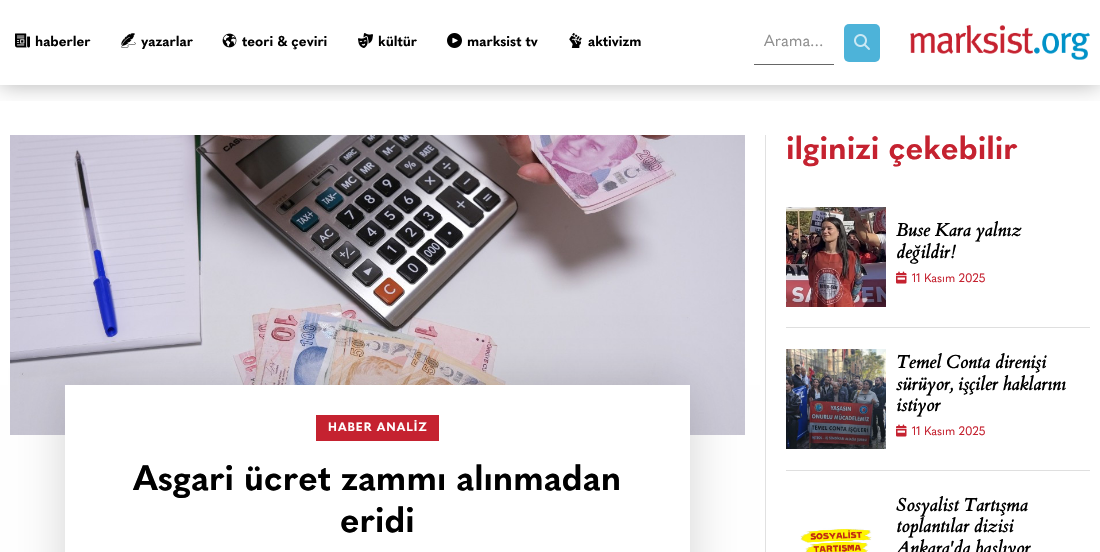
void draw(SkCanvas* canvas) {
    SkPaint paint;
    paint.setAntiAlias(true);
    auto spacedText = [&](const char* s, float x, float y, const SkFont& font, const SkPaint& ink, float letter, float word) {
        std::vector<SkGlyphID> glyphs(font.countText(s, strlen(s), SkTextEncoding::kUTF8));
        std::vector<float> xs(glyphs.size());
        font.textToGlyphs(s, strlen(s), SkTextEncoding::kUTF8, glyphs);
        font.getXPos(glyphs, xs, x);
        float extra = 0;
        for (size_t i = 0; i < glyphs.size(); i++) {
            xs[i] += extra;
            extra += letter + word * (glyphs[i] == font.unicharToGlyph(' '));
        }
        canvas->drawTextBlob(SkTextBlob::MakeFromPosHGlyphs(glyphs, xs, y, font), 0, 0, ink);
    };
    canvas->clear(0xFFFFFFFF);
    canvas->save();
    canvas->clipRect(SkRect::MakeXYWH(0, 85, 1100, 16));
    paint.setColor(0x4D000000);
    paint.setMaskFilter(SkMaskFilter::MakeBlur(kNormal_SkBlurStyle, 10.5f));
    canvas->drawRect(SkRect::MakeXYWH(0, 0, 1100, 85), paint);
    paint.setMaskFilter(nullptr);
    canvas->restore();
    canvas->drawImageRect(SkImages::DeferredFromEncodedData(SkData::MakeFromFileName("img1.png")), SkRect::MakeXYWH(15, 33, 15, 15), SkSamplingOptions());
    SkFont font1(fontMgr->matchFamilyStyle("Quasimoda", SkFontStyle::Bold()), 14);
    font1.setSubpixel(true);
    paint.setColor(0xFF000000);
    canvas->drawString("haberler", 35, 46, font1, paint);
    canvas->drawImageRect(SkImages::DeferredFromEncodedData(SkData::MakeFromFileName("img2.png")), SkRect::MakeXYWH(121, 33, 15, 15), SkSamplingOptions());
    canvas->drawString("yazarlar", 141, 46, font1, paint);
    canvas->drawImageRect(SkImages::DeferredFromEncodedData(SkData::MakeFromFileName("img3.png")), SkRect::MakeXYWH(222, 33, 15, 15), SkSamplingOptions());
    canvas->drawString("teori & çeviri", 242, 46, font1, paint);
    canvas->drawImageRect(SkImages::DeferredFromEncodedData(SkData::MakeFromFileName("img4.png")), SkRect::MakeXYWH(358, 33, 15, 15), SkSamplingOptions());
    canvas->drawString("kültür", 378, 46, font1, paint);
    canvas->drawImageRect(SkImages::DeferredFromEncodedData(SkData::MakeFromFileName("img5.png")), SkRect::MakeXYWH(447, 33, 15, 15), SkSamplingOptions());
    canvas->drawString("marksist tv", 467, 46, font1, paint);
    canvas->drawImageRect(SkImages::DeferredFromEncodedData(SkData::MakeFromFileName("img6.png")), SkRect::MakeXYWH(569, 33, 13, 15), SkSamplingOptions());
    canvas->drawString("aktivizm", 588, 46, font1, paint);
    paint.setColor(0xFF666666);
    canvas->drawRect(SkRect::MakeXYWH(754, 64, 80, 1), paint);
    SkFont font2(fontMgr->matchFamilyStyle("Quasimoda", SkFontStyle::Normal()), 16);
    font2.setSubpixel(true);
    paint.setColor(0xFF8F8F8F);
    canvas->drawString("Arama...", 764, 46, font2, paint);
    paint.setColor(0xFF4DB3D9);
    canvas->drawRoundRect(SkRect::MakeXYWH(844, 24, 36, 38), 5, 5, paint);
    canvas->drawImageRect(SkImages::DeferredFromEncodedData(SkData::MakeFromFileName("img7.png")), SkRect::MakeXYWH(854, 34, 16, 16), SkSamplingOptions());
    canvas->drawImageRect(SkImages::DeferredFromEncodedData(SkData::MakeFromFileName("img8.png")), SkRect::MakeXYWH(910, 25, 180, 35), SkSamplingOptions());
    paint.setColor(0xFFE1E1E1);
    canvas->drawRect(SkRect::MakeXYWH(765, 135, 1, 417), paint);
    canvas->drawImageRect(SkImages::DeferredFromEncodedData(SkData::MakeFromFileName("img9.png")), SkRect::MakeXYWH(10, 135, 735, 300), SkSamplingOptions());
    paint.setColor(0x2B000000);
    paint.setMaskFilter(SkMaskFilter::MakeBlur(kNormal_SkBlurStyle, 23.5f));
    canvas->drawRect(SkRect::MakeXYWH(65, 385, 625, 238), paint);
    paint.setMaskFilter(nullptr);
    paint.setColor(0xFFFFFFFF);
    canvas->drawRect(SkRect::MakeXYWH(65, 385, 625, 167), paint);
    paint.setColor(0xFFC52230);
    canvas->drawRect(SkRect::MakeXYWH(316, 415, 123, 26), paint);
    SkFont font3(fontMgr->matchFamilyStyle("Quasimoda", SkFontStyle::Bold()), 12);
    font3.setSubpixel(true);
    paint.setColor(0xFFFFFFFF);
    spacedText("HABER ANALİZ", 328, 431, font3, paint, 1, 0);
    SkFont font4(fontMgr->matchFamilyStyle("Quasimoda", SkFontStyle::Bold()), 35);
    font4.setSubpixel(true);
    paint.setColor(0xFF000000);
    canvas->drawString("Asgari ücret zammı alınmadan", 133, 490, font4, paint);
    canvas->drawString("eridi", 340, 532, font4, paint);
    SkFont font5(fontMgr->matchFamilyStyle("Quasimoda", SkFontStyle::Bold()), 32);
    font5.setSubpixel(true);
    paint.setColor(0xFFC52230);
    canvas->drawString("ilginizi çekebilir", 786, 159, font5, paint);
    paint.setColor(0xFFDFDFDF);
    canvas->drawRect(SkRect::MakeXYWH(786, 327, 304, 1), paint);
    canvas->drawImageRect(SkImages::DeferredFromEncodedData(SkData::MakeFromFileName("img10.png")), SkRect::MakeXYWH(786, 207, 100, 100), SkSamplingOptions());
    SkFont font6(fontMgr->matchFamilyStyle("Cardo", SkFontStyle::BoldItalic()), 18);
    font6.setSubpixel(true);
    paint.setColor(0xFF000000);
    canvas->drawString("Buse Kara yalnız", 896, 236, font6, paint);
    canvas->drawString("değildir!", 896, 258, font6, paint);
    canvas->drawImageRect(SkImages::DeferredFromEncodedData(SkData::MakeFromFileName("img11.png")), SkRect::MakeXYWH(896, 271, 11, 13), SkSamplingOptions());
    SkFont font7(fontMgr->matchFamilyStyle("Quasimoda", SkFontStyle::Normal()), 12);
    font7.setSubpixel(true);
    paint.setColor(0xFFC52230);
    canvas->drawString("11 Kasım 2025", 912, 282, font7, paint);
    paint.setColor(0xFFDFDFDF);
    canvas->drawRect(SkRect::MakeXYWH(786, 470, 304, 1), paint);
    canvas->drawImageRect(SkImages::DeferredFromEncodedData(SkData::MakeFromFileName("img12.png")), SkRect::MakeXYWH(786, 349, 100, 100), SkSamplingOptions());
    paint.setColor(0xFF000000);
    canvas->drawString("Temel Conta direnişi", 896, 368, font6, paint);
    canvas->drawString("sürüyor, işçiler haklarını", 896, 390, font6, paint);
    canvas->drawString("istiyor", 896, 411, font6, paint);
    canvas->drawImageRect(SkImages::DeferredFromEncodedData(SkData::MakeFromFileName("img11.png")), SkRect::MakeXYWH(896, 424, 11, 13), SkSamplingOptions());
    paint.setColor(0xFFC52230);
    canvas->drawString("11 Kasım 2025", 912, 435, font7, paint);
    canvas->drawImageRect(SkImages::DeferredFromEncodedData(SkData::MakeFromFileName("img13.png")), SkRect::MakeXYWH(800, 528, 72, 24), SkSamplingOptions());
    paint.setColor(0xFF000000);
    canvas->drawString("Sosyalist Tartışma", 896, 511, font6, paint);
    canvas->drawString("toplantılar dizisi", 896, 532, font6, paint);
    canvas->drawString("Ankara'da başlıyor", 896, 554, font6, paint);
}
